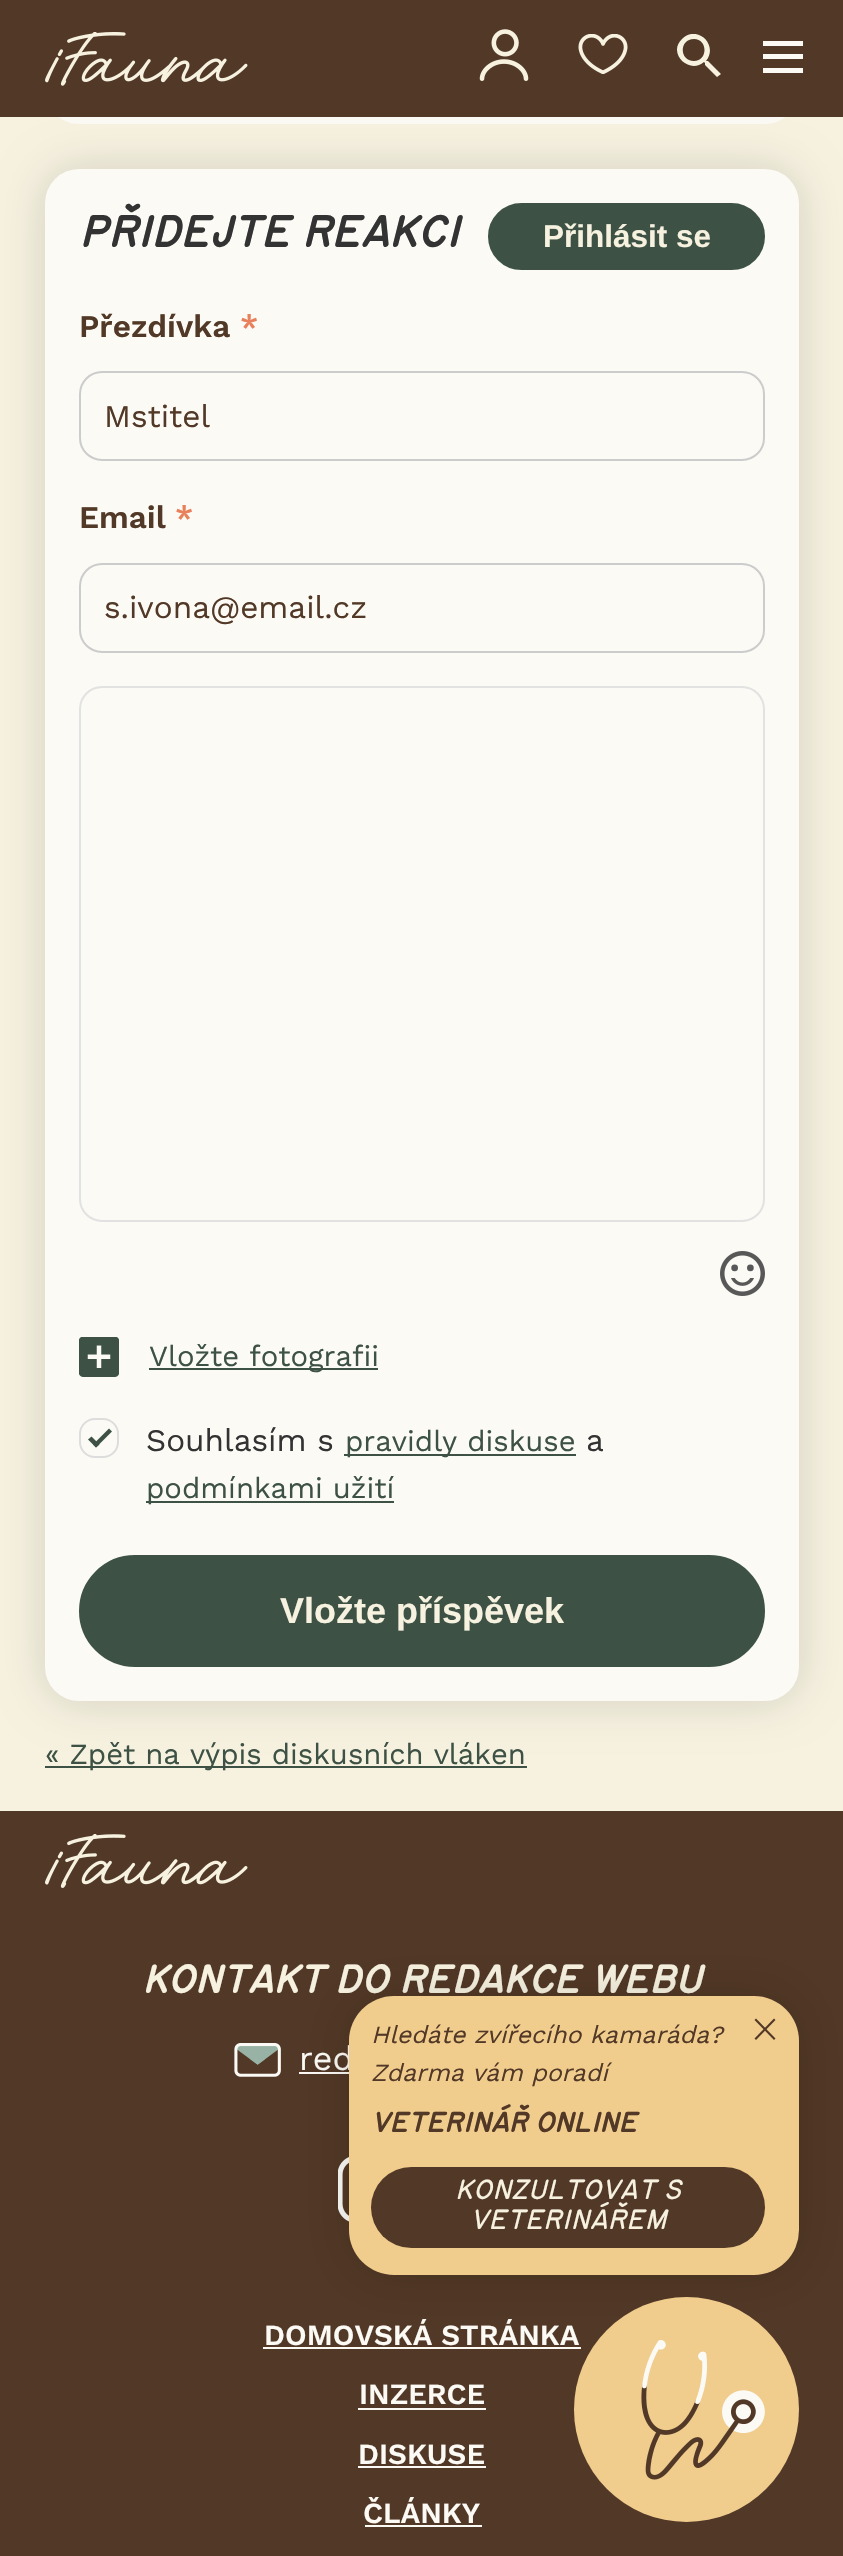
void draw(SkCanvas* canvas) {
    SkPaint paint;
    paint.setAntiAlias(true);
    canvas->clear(0xFFF7F2E0);
    paint.setColor(0xFFFCFAF5);
    canvas->drawRoundRect(SkRect::MakeXYWH(45, -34, 754, 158), 34, 34, paint);
    paint.setColor(0xFF3D5245);
    canvas->drawRect(SkRect::MakeXYWH(45, 1766, 482, 2), paint);
    paint.setColor(0x26000000);
    paint.setMaskFilter(SkMaskFilter::MakeBlur(kNormal_SkBlurStyle, 22.5f));
    canvas->drawRoundRect(SkRect::MakeXYWH(45, 169, 754, 1532), 34, 34, paint);
    paint.setMaskFilter(nullptr);
    paint.setColor(0xFF523826);
    canvas->drawRect(SkRect::MakeXYWH(0, 0, 843, 117), paint);
    canvas->drawImageRect(SkImages::DeferredFromEncodedData(SkData::MakeFromFileName("img1.png")), SkRect::MakeXYWH(45, 32, 203, 54), SkSamplingOptions());
    canvas->drawImageRect(SkImages::DeferredFromEncodedData(SkData::MakeFromFileName("img2.png")), SkRect::MakeXYWH(479, 29, 50, 52), SkSamplingOptions());
    canvas->drawImageRect(SkImages::DeferredFromEncodedData(SkData::MakeFromFileName("img3.png")), SkRect::MakeXYWH(578, 34, 50, 40), SkSamplingOptions());
    canvas->save();
    canvas->clipRect(SkRect::MakeXYWH(677, 34, 45, 45));
    paint.setColor(0xFFF7F2E0);
    canvas->drawPath(SkPathBuilder(SkPathFillType::kEvenOdd).moveTo(708, 61).lineTo(707, 61).lineTo(706, 61).cubicTo(719, 45, 697, 24, 682, 39).cubicTo(667, 53, 689, 75, 704, 62).lineTo(705, 63).lineTo(705, 65).lineTo(717, 77).lineTo(721, 74).close().moveTo(694, 61).cubicTo(679, 61, 679, 39, 694, 39).cubicTo(708, 39, 708, 61, 694, 61).close().detach(), paint);
    canvas->restore();
    paint.setColor(0xFFFCFAF5);
    canvas->drawRect(SkRect::MakeXYWH(763, 41, 40, 5), paint);
    canvas->drawRect(SkRect::MakeXYWH(763, 54, 40, 5), paint);
    canvas->drawRect(SkRect::MakeXYWH(763, 68, 40, 5), paint);
    canvas->drawRoundRect(SkRect::MakeXYWH(45, 169, 754, 1532), 34, 34, paint);
    SkFont font1(fontMgr->matchFamilyStyle("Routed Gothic", SkFontStyle::BoldItalic()), 42.75f);
    font1.setSubpixel(true);
    paint.setColor(0xFF333333);
    canvas->drawString("PŘIDEJTE REAKCI", 79, 247, font1, paint);
    paint.setColor(0xFF3D5245);
    canvas->drawRoundRect(SkRect::MakeXYWH(490.5f, 205.5f, 272, 62), 31, 31, paint);
    paint.setStyle(SkPaint::kStroke_Style);
    paint.setStrokeWidth(5);
    canvas->drawRoundRect(SkRect::MakeXYWH(490.5f, 205.5f, 272, 62), 31, 31, paint);
    SkFont font2(fontMgr->matchFamilyStyle("Liberation Sans", SkFontStyle::Bold()), 31.5f);
    font2.setSubpixel(true);
    paint.setStyle(SkPaint::kFill_Style);
    paint.setColor(0xFFF7F2E0);
    canvas->drawString("Přihlásit se", 543, 247, font2, paint);
    SkFont font3(fontMgr->matchFamilyStyle("Work Sans", SkFontStyle(600, SkFontStyle::kNormal_Width, SkFontStyle::kUpright_Slant)), 31.5f);
    font3.setSubpixel(true);
    paint.setColor(0xFF523826);
    canvas->drawString("Přezdívka", 79, 337, font3, paint);
    paint.setColor(0xFFE8805C);
    canvas->drawString("*", 240, 337, font3, paint);
    paint.setStyle(SkPaint::kStroke_Style);
    paint.setStrokeWidth(2);
    paint.setColor(0xFFCCCCCC);
    canvas->drawRoundRect(SkRect::MakeXYWH(80, 372, 684, 88), 22, 22, paint);
    SkFont font4(fontMgr->matchFamilyStyle("Work Sans", SkFontStyle::Normal()), 31.5f);
    font4.setSubpixel(true);
    paint.setStyle(SkPaint::kFill_Style);
    paint.setColor(0xFF523826);
    canvas->drawString("Mstitel", 104, 427, font4, paint);
    canvas->drawString("Email", 79, 528, font3, paint);
    paint.setColor(0xFFE8805C);
    canvas->drawString("*", 175, 528, font3, paint);
    paint.setStyle(SkPaint::kStroke_Style);
    paint.setColor(0xFFCCCCCC);
    canvas->drawRoundRect(SkRect::MakeXYWH(80, 564, 684, 88), 22, 22, paint);
    paint.setStyle(SkPaint::kFill_Style);
    paint.setColor(0xFF523826);
    canvas->drawString("s.ivona@email.cz", 104, 618, font4, paint);
    paint.setStyle(SkPaint::kStroke_Style);
    paint.setColor(0xFFE2E2E2);
    canvas->drawRoundRect(SkRect::MakeXYWH(80, 687, 684, 534), 22, 22, paint);
    canvas->drawImageRect(SkImages::DeferredFromEncodedData(SkData::MakeFromFileName("img4.png")), SkRect::MakeXYWH(720, 1251, 45, 45), SkSamplingOptions());
    canvas->drawImageRect(SkImages::DeferredFromEncodedData(SkData::MakeFromFileName("img5.png")), SkRect::MakeXYWH(79, 1337, 40, 40), SkSamplingOptions());
    paint.setStyle(SkPaint::kFill_Style);
    paint.setColor(0xFF3D5245);
    canvas->drawRect(SkRect::MakeXYWH(149, 1368, 229, 2), paint);
    SkFont font5(fontMgr->matchFamilyStyle("Work Sans", SkFontStyle::Normal()), 29.25f);
    font5.setSubpixel(true);
    canvas->drawString("Vložte fotografii", 149, 1366, font5, paint);
    paint.setStyle(SkPaint::kStroke_Style);
    paint.setColor(0xFFDDDDDD);
    canvas->drawRoundRect(SkRect::MakeXYWH(80, 1419, 38, 38), 15, 15, paint);
    paint.setStyle(SkPaint::kFill_Style);
    paint.setColor(0xFF333333);
    canvas->drawString("Souhlasím s", 146, 1451, font4, paint);
    paint.setColor(0xFF3D5245);
    canvas->drawPath(SkPathBuilder().moveTo(109, 1428.5f).lineTo(112, 1431.5f).lineTo(96, 1447.5f).lineTo(93, 1444.5f).close().detach(), paint);
    canvas->drawPath(SkPathBuilder().moveTo(91.5f, 1436.5f).lineTo(99.5f, 1444.5f).lineTo(96, 1447.5f).lineTo(88, 1439.5f).close().detach(), paint);
    canvas->drawRect(SkRect::MakeXYWH(344, 1454, 232, 2), paint);
    canvas->drawString("pravidly diskuse", 345, 1451, font5, paint);
    paint.setColor(0xFF333333);
    canvas->drawString("a", 586, 1451, font4, paint);
    paint.setColor(0xFF3D5245);
    canvas->drawRect(SkRect::MakeXYWH(146, 1501, 248, 2), paint);
    canvas->drawString("podmínkami užití", 146, 1498, font5, paint);
    canvas->drawRoundRect(SkRect::MakeXYWH(81.5f, 1557.5f, 681, 107), 53.5f, 53.5f, paint);
    paint.setStyle(SkPaint::kStroke_Style);
    paint.setStrokeWidth(5);
    canvas->drawRoundRect(SkRect::MakeXYWH(81.5f, 1557.5f, 681, 107), 53.5f, 53.5f, paint);
    SkFont font6(fontMgr->matchFamilyStyle("Liberation Sans", SkFontStyle::Bold()), 36);
    font6.setSubpixel(true);
    paint.setStyle(SkPaint::kFill_Style);
    paint.setColor(0xFFF7F2E0);
    canvas->drawString("Vložte příspěvek", 280, 1623, font6, paint);
    paint.setColor(0xFF3D5245);
    canvas->drawString("« Zpět na výpis diskusních vláken", 45, 1764, font5, paint);
    paint.setColor(0xFF523826);
    canvas->drawRect(SkRect::MakeXYWH(0, 1811, 843, 745), paint);
    canvas->drawImageRect(SkImages::DeferredFromEncodedData(SkData::MakeFromFileName("img6.png")), SkRect::MakeXYWH(45, 1834, 203, 54), SkSamplingOptions());
    SkFont font7(fontMgr->matchFamilyStyle("Routed Gothic", SkFontStyle::BoldItalic()), 38.25f);
    font7.setSubpixel(true);
    paint.setColor(0xFFF7F2E0);
    canvas->drawString("KONTAKT DO REDAKCE WEBU", 142, 1993, font7, paint);
    canvas->drawImageRect(SkImages::DeferredFromEncodedData(SkData::MakeFromFileName("img7.png")), SkRect::MakeXYWH(234, 2043, 47, 34), SkSamplingOptions());
    SkFont font8(fontMgr->matchFamilyStyle("Work Sans", SkFontStyle::Normal()), 34);
    font8.setSubpixel(true);
    paint.setColor(0xFFFCFAF5);
    canvas->drawString("red", 299, 2070, font8, paint);
    canvas->drawRect(SkRect::MakeXYWH(299, 2072, 50, 2), paint);
    canvas->drawImageRect(SkImages::DeferredFromEncodedData(SkData::MakeFromFileName("img8.png")), SkRect::MakeXYWH(338, 2157, 11, 65), SkSamplingOptions());
    SkFont font9(fontMgr->matchFamilyStyle("Work Sans", SkFontStyle(600, SkFontStyle::kNormal_Width, SkFontStyle::kUpright_Slant)), 29.25f);
    font9.setSubpixel(true);
    canvas->drawString("DOMOVSKÁ STRÁNKA", 264, 2345, font9, paint);
    canvas->drawRect(SkRect::MakeXYWH(263, 2347, 318, 2), paint);
    canvas->drawString("INZERCE", 359, 2404, font9, paint);
    canvas->drawRect(SkRect::MakeXYWH(358, 2408, 128, 2), paint);
    canvas->drawString("DISKUSE", 358, 2464, font9, paint);
    canvas->drawRect(SkRect::MakeXYWH(358, 2466, 128, 2), paint);
    canvas->drawString("ČLÁNKY", 363, 2523, font9, paint);
    canvas->drawRect(SkRect::MakeXYWH(365, 2525, 117, 2), paint);
    paint.setColor(0x26000000);
    paint.setMaskFilter(SkMaskFilter::MakeBlur(kNormal_SkBlurStyle, 22.5f));
    canvas->drawRoundRect(SkRect::MakeXYWH(349, 1996, 450, 279), 45, 45, paint);
    paint.setMaskFilter(nullptr);
    paint.setColor(0xFFF0CC8D);
    canvas->drawRoundRect(SkRect::MakeXYWH(349, 1996, 450, 279), 45, 45, paint);
    SkFont font10(fontMgr->matchFamilyStyle("Work Sans", SkFontStyle::Italic()), 24.75f);
    font10.setSubpixel(true);
    paint.setColor(0xFF523826);
    canvas->drawString("Hledáte zvířecího kamaráda?", 371, 2043, font10, paint);
    canvas->drawString("Zdarma vám poradí", 371, 2081, font10, paint);
    SkFont font11(fontMgr->matchFamilyStyle("Routed Gothic", SkFontStyle::BoldItalic()), 27);
    font11.setSubpixel(true);
    canvas->drawString("VETERINÁŘ ONLINE", 371, 2132, font11, paint);
    canvas->drawRoundRect(SkRect::MakeXYWH(371, 2167, 394, 81), 40.5f, 40.5f, paint);
    SkFont font12(fontMgr->matchFamilyStyle("Routed Gothic", SkFontStyle::Italic()), 27);
    font12.setSubpixel(true);
    paint.setColor(0xFFF7F2E0);
    canvas->drawString("KONZULTOVAT S", 455, 2199, font12, paint);
    canvas->drawString("VETERINÁŘEM", 470, 2229, font12, paint);
    paint.setColor(0xFF523826);
    canvas->drawPath(SkPathBuilder().moveTo(756, 2018.5f).lineTo(775.5f, 2038.5f).lineTo(774, 2040).lineTo(754.5f, 2020).close().detach(), paint);
    canvas->drawPath(SkPathBuilder().moveTo(754.5f, 2038.5f).lineTo(774, 2018.5f).lineTo(775.5f, 2020).lineTo(756, 2040).close().detach(), paint);
    paint.setColor(0xFFF0CC8D);
    canvas->drawCircle(686.5f, 2409.5f, 112.5f, paint);
    canvas->drawImageRect(SkImages::DeferredFromEncodedData(SkData::MakeFromFileName("img9.png")), SkRect::MakeXYWH(641, 2340, 124, 140), SkSamplingOptions());
}
